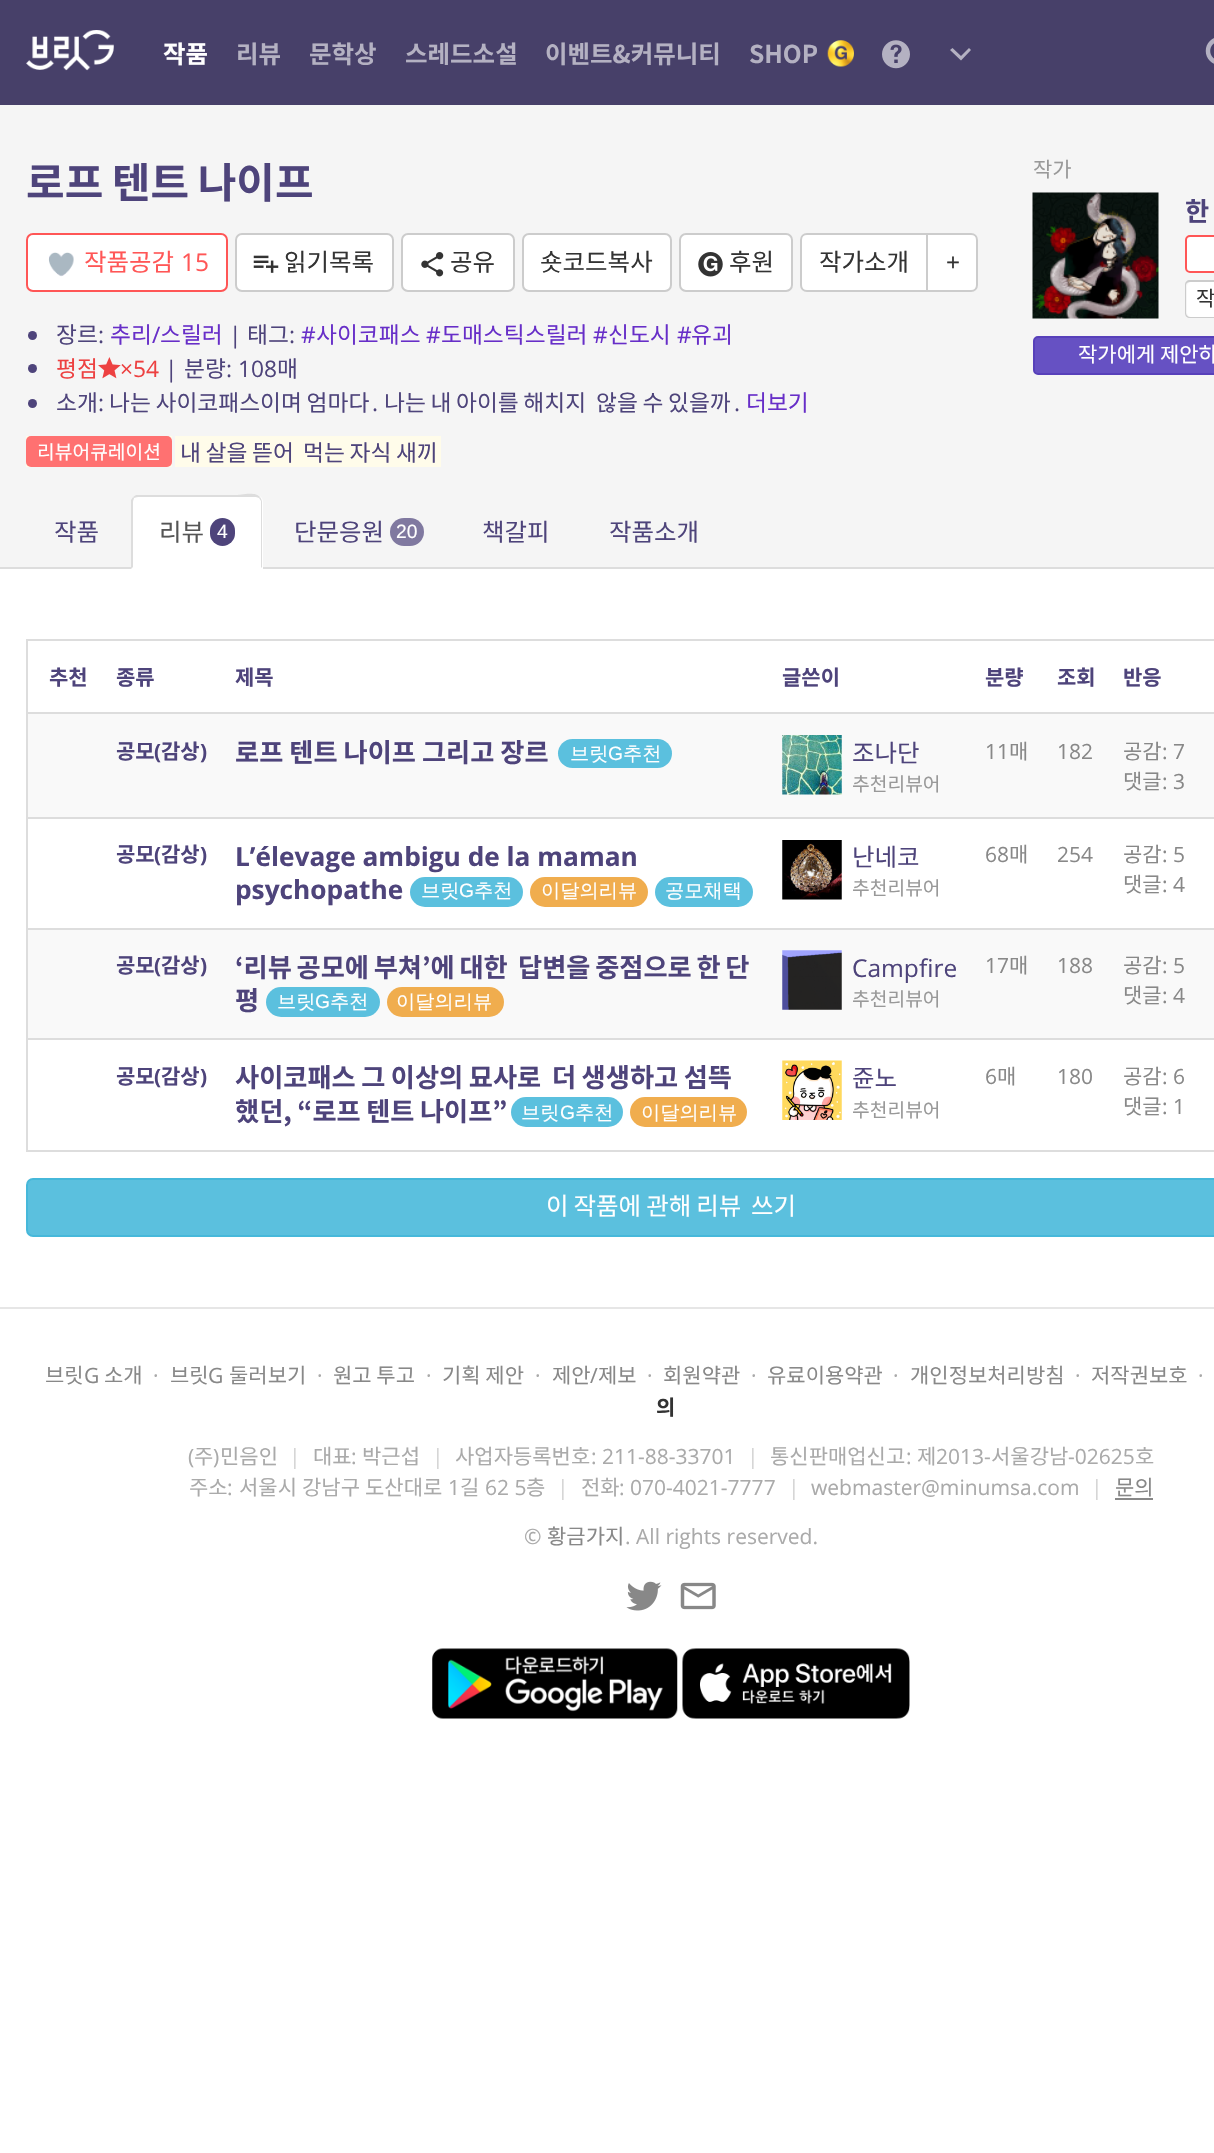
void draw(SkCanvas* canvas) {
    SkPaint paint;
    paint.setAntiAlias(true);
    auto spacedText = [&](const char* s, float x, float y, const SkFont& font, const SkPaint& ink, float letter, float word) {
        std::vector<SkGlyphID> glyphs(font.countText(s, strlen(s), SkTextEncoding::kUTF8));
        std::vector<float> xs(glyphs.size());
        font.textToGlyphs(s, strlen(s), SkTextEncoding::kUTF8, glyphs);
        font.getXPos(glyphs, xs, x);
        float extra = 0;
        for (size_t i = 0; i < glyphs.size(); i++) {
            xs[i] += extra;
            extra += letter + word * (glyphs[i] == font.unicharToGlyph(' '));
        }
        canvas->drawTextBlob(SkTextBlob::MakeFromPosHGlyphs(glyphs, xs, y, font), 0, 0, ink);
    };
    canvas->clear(0xFFFFFFFF);
    paint.setColor(0xFF474069);
    canvas->drawRect(SkRect::MakeXYWH(0, 0, 1214, 105), paint);
    canvas->drawImageRect(SkImages::DeferredFromEncodedData(SkData::MakeFromFileName("img1.png")), SkRect::MakeXYWH(26, 30, 88, 41), SkSamplingOptions());
    SkFont font1(fontMgr->matchFamilyStyle("Noto Sans KR", SkFontStyle::Bold()), 24.5f);
    font1.setSubpixel(true);
    paint.setColor(0xFFFFFFFF);
    canvas->drawString("작품", 163, 63, font1, paint);
    paint.setColor(0xFFB4B1C2);
    canvas->drawString("리뷰", 236, 63, font1, paint);
    canvas->drawString("문학상", 309, 63, font1, paint);
    canvas->drawString("스레드소설", 405, 63, font1, paint);
    canvas->drawString("이벤트&커뮤니티", 545, 63, font1, paint);
    canvas->drawString("SHOP", 749, 63, font1, paint);
    canvas->drawImageRect(SkImages::DeferredFromEncodedData(SkData::MakeFromFileName("img2.png")), SkRect::MakeXYWH(827, 40, 27, 27), SkSamplingOptions());
    canvas->drawImageRect(SkImages::DeferredFromEncodedData(SkData::MakeFromFileName("img3.png")), SkRect::MakeXYWH(882, 40, 28, 29), SkSamplingOptions());
    canvas->drawPath(SkPathBuilder().moveTo(961, 56).lineTo(952.5f, 48).lineTo(950, 50).lineTo(961, 60.5f).lineTo(971, 50).lineTo(969, 48).close().detach(), paint);
    canvas->drawImageRect(SkImages::DeferredFromEncodedData(SkData::MakeFromFileName("img4.png")), SkRect::MakeXYWH(1205, 38, 9, 26), SkSamplingOptions());
    paint.setColor(0xFFF5F5F5);
    canvas->drawRect(SkRect::MakeXYWH(0, 105, 1214, 462), paint);
    paint.setColor(0xFFDDDDDD);
    canvas->drawRect(SkRect::MakeXYWH(0, 567, 1214, 2), paint);
    SkFont font2(fontMgr->matchFamilyStyle("Noto Sans KR", SkFontStyle::Bold()), 42);
    font2.setSubpixel(true);
    paint.setColor(0xFF4E447B);
    spacedText("로프 텐트 나이프", 26, 198, font2, paint, 0, -1);
    paint.setColor(0xFFFFFFFF);
    canvas->drawRoundRect(SkRect::MakeXYWH(27, 234, 200, 57), 6, 6, paint);
    paint.setStyle(SkPaint::kStroke_Style);
    paint.setStrokeWidth(2);
    paint.setColor(0xFFFF5656);
    canvas->drawRoundRect(SkRect::MakeXYWH(27, 234, 200, 57), 6, 6, paint);
    canvas->drawImageRect(SkImages::DeferredFromEncodedData(SkData::MakeFromFileName("img5.png")), SkRect::MakeXYWH(48, 252, 26, 25), SkSamplingOptions());
    SkFont font3(fontMgr->matchFamilyStyle("Noto Sans KR", SkFontStyle::Normal()), 24.5f);
    font3.setSubpixel(true);
    paint.setStyle(SkPaint::kFill_Style);
    canvas->drawString("작품공감", 84, 271, font3, paint);
    SkFont font4(fontMgr->matchFamilyStyle("Open Sans", SkFontStyle::Normal()), 24.5f);
    font4.setSubpixel(true);
    canvas->drawString("15", 181, 271, font4, paint);
    paint.setColor(0xFFFFFFFF);
    canvas->drawRoundRect(SkRect::MakeXYWH(236, 234, 157, 57), 6, 6, paint);
    paint.setStyle(SkPaint::kStroke_Style);
    paint.setColor(0xFFCCCCCC);
    canvas->drawRoundRect(SkRect::MakeXYWH(236, 234, 157, 57), 6, 6, paint);
    canvas->drawImageRect(SkImages::DeferredFromEncodedData(SkData::MakeFromFileName("img6.png")), SkRect::MakeXYWH(253, 255, 26, 18), SkSamplingOptions());
    paint.setStyle(SkPaint::kFill_Style);
    paint.setColor(0xFF333333);
    canvas->drawString("읽기목록", 284, 271, font3, paint);
    paint.setColor(0xFFFFFFFF);
    canvas->drawRoundRect(SkRect::MakeXYWH(402, 234, 112, 57), 6, 6, paint);
    paint.setStyle(SkPaint::kStroke_Style);
    paint.setColor(0xFFCCCCCC);
    canvas->drawRoundRect(SkRect::MakeXYWH(402, 234, 112, 57), 6, 6, paint);
    canvas->drawImageRect(SkImages::DeferredFromEncodedData(SkData::MakeFromFileName("img7.png")), SkRect::MakeXYWH(421, 252, 23, 25), SkSamplingOptions());
    paint.setStyle(SkPaint::kFill_Style);
    paint.setColor(0xFF333333);
    canvas->drawString("공유", 450, 271, font3, paint);
    paint.setColor(0xFFFFFFFF);
    canvas->drawRoundRect(SkRect::MakeXYWH(523, 234, 148, 57), 6, 6, paint);
    paint.setStyle(SkPaint::kStroke_Style);
    paint.setColor(0xFFCCCCCC);
    canvas->drawRoundRect(SkRect::MakeXYWH(523, 234, 148, 57), 6, 6, paint);
    paint.setStyle(SkPaint::kFill_Style);
    paint.setColor(0xFF333333);
    canvas->drawString("숏코드복사", 540, 271, font3, paint);
    paint.setColor(0xFFFFFFFF);
    canvas->drawRoundRect(SkRect::MakeXYWH(680, 234, 112, 57), 6, 6, paint);
    paint.setStyle(SkPaint::kStroke_Style);
    paint.setColor(0xFFCCCCCC);
    canvas->drawRoundRect(SkRect::MakeXYWH(680, 234, 112, 57), 6, 6, paint);
    canvas->drawImageRect(SkImages::DeferredFromEncodedData(SkData::MakeFromFileName("img8.png")), SkRect::MakeXYWH(698, 252, 25, 25), SkSamplingOptions());
    paint.setStyle(SkPaint::kFill_Style);
    paint.setColor(0xFF333333);
    canvas->drawString("후원", 729, 271, font3, paint);
    paint.setColor(0xFFFFFFFF);
    canvas->drawPath(SkPathBuilder().moveTo(807, 234).lineTo(927, 234).lineTo(927, 291).lineTo(807, 291).cubicTo(803.5f, 291, 801, 288.5f, 801, 285).lineTo(801, 240).cubicTo(801, 236.5f, 803.5f, 234, 807, 234).close().detach(), paint);
    paint.setStyle(SkPaint::kStroke_Style);
    paint.setColor(0xFFCCCCCC);
    canvas->drawPath(SkPathBuilder().moveTo(807, 234).lineTo(927, 234).lineTo(927, 291).lineTo(807, 291).cubicTo(803.5f, 291, 801, 288.5f, 801, 285).lineTo(801, 240).cubicTo(801, 236.5f, 803.5f, 234, 807, 234).close().detach(), paint);
    paint.setStyle(SkPaint::kFill_Style);
    paint.setColor(0xFF333333);
    canvas->drawString("작가소개", 819, 271, font3, paint);
    paint.setColor(0xFFFFFFFF);
    canvas->drawPath(SkPathBuilder().moveTo(927, 234).lineTo(971, 234).cubicTo(974.5f, 234, 977, 236.5f, 977, 240).lineTo(977, 285).cubicTo(977, 288.5f, 974.5f, 291, 971, 291).lineTo(927, 291).close().detach(), paint);
    paint.setStyle(SkPaint::kStroke_Style);
    paint.setColor(0xFFCCCCCC);
    canvas->drawPath(SkPathBuilder().moveTo(927, 234).lineTo(971, 234).cubicTo(974.5f, 234, 977, 236.5f, 977, 240).lineTo(977, 285).cubicTo(977, 288.5f, 974.5f, 291, 971, 291).lineTo(927, 291).close().detach(), paint);
    paint.setStyle(SkPaint::kFill_Style);
    paint.setColor(0xFF333333);
    canvas->drawString("+", 946, 271, font4, paint);
    paint.setColor(0xFF4E447B);
    canvas->drawCircle(32.5f, 335.5f, 4.5f, paint);
    SkFont font5(fontMgr->matchFamilyStyle("Noto Sans KR", SkFontStyle::Normal()), 22.75f);
    font5.setSubpixel(true);
    canvas->drawString("장르", 56, 343, font5, paint);
    SkFont font6(fontMgr->matchFamilyStyle("Open Sans", SkFontStyle::Normal()), 22.75f);
    font6.setSubpixel(true);
    canvas->drawString(":", 98, 343, font6, paint);
    paint.setColor(0xFF672EC8);
    canvas->drawString("추리", 110, 343, font5, paint);
    canvas->drawString("/", 152, 343, font6, paint);
    canvas->drawString("스릴러", 160, 343, font5, paint);
    paint.setColor(0xFF4E447B);
    canvas->drawString("|", 229, 343, font6, paint);
    canvas->drawString("태그", 247, 343, font5, paint);
    canvas->drawString(":", 289, 343, font6, paint);
    paint.setColor(0xFF672EC8);
    canvas->drawString("#", 301, 343, font6, paint);
    canvas->drawString("사이코패스", 316, 343, font5, paint);
    canvas->drawString("#", 426, 343, font6, paint);
    canvas->drawString("도매스틱스릴러", 441, 343, font5, paint);
    canvas->drawString("#", 593, 343, font6, paint);
    canvas->drawString("신도시", 608, 343, font5, paint);
    canvas->drawString("#", 677, 343, font6, paint);
    canvas->drawString("유괴", 691, 343, font5, paint);
    paint.setColor(0xFF4E447B);
    canvas->drawCircle(32.5f, 368.5f, 4.5f, paint);
    paint.setColor(0xFFED4141);
    canvas->drawString("평점", 56, 377, font5, paint);
    canvas->drawImageRect(SkImages::DeferredFromEncodedData(SkData::MakeFromFileName("img9.png")), SkRect::MakeXYWH(98, 357, 23, 22), SkSamplingOptions());
    canvas->drawString("×54", 120, 377, font6, paint);
    paint.setColor(0xFF4E447B);
    canvas->drawString("|", 165, 377, font6, paint);
    canvas->drawString("분량", 184, 377, font5, paint);
    canvas->drawString(": 108", 226, 377, font6, paint);
    canvas->drawString("매", 277, 377, font5, paint);
    canvas->drawCircle(32.5f, 403.5f, 4.5f, paint);
    canvas->drawString("소개", 56, 411, font5, paint);
    canvas->drawString(":", 98, 411, font6, paint);
    spacedText("나는 사이코패스이며 엄마다", 109, 411, font5, paint, 0, -0.5f);
    canvas->drawString(".", 372, 411, font6, paint);
    spacedText("나는 내 아이를 해치지", 384, 411, font5, paint, 0, -0.5f);
    spacedText("않을 수 있을까", 596, 411, font5, paint, 0, -0.5f);
    canvas->drawString(".", 734, 411, font6, paint);
    paint.setColor(0xFF672EC8);
    canvas->drawString("더보기", 746, 411, font5, paint);
    paint.setColor(0xFFFFFCEA);
    canvas->drawRect(SkRect::MakeXYWH(26, 436, 146, 31), paint);
    canvas->drawRect(SkRect::MakeXYWH(175, 436, 266, 31), paint);
    paint.setColor(0xFFFF7171);
    canvas->drawRoundRect(SkRect::MakeXYWH(26, 436, 146, 31), 5, 5, paint);
    SkFont font7(fontMgr->matchFamilyStyle("Noto Sans KR", SkFontStyle::Normal()), 19.25f);
    font7.setSubpixel(true);
    paint.setColor(0xFFFFFFFF);
    canvas->drawString("리뷰어큐레이션", 37, 459, font7, paint);
    paint.setColor(0xFF4E447B);
    spacedText("내 살을 뜯어", 180, 461, font5, paint, 0, -0.5f);
    spacedText("먹는 자식 새끼", 303, 461, font5, paint, 0, -0.5f);
    SkFont font8(fontMgr->matchFamilyStyle("Noto Sans KR", SkFontStyle::Normal()), 21);
    font8.setSubpixel(true);
    paint.setColor(0xFF999999);
    canvas->drawString("작가", 1033, 177, font8, paint);
    canvas->drawImageRect(SkImages::DeferredFromEncodedData(SkData::MakeFromFileName("img10.png")), SkRect::MakeXYWH(1032, 192, 127, 127), SkSamplingOptions());
    SkFont font9(fontMgr->matchFamilyStyle("Noto Sans KR", SkFontStyle::Bold()), 26.25f);
    font9.setSubpixel(true);
    paint.setColor(0xFF4E447B);
    canvas->drawString("한", 1185, 221, font9, paint);
    paint.setColor(0xFFFFFFFF);
    canvas->drawRoundRect(SkRect::MakeXYWH(1186, 236, 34, 36), 4, 4, paint);
    paint.setStyle(SkPaint::kStroke_Style);
    paint.setColor(0xFFFF5656);
    canvas->drawRoundRect(SkRect::MakeXYWH(1186, 236, 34, 36), 4, 4, paint);
    paint.setStyle(SkPaint::kFill_Style);
    paint.setColor(0xFFFFFFFF);
    canvas->drawPath(SkPathBuilder().moveTo(1191, 282).lineTo(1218, 282).lineTo(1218, 317).lineTo(1191, 317).cubicTo(1189, 317, 1187, 315, 1187, 313).lineTo(1187, 286).cubicTo(1187, 284, 1189, 282, 1191, 282).close().detach(), paint);
    paint.setColor(0xFFCCCCCC);
    canvas->drawPath(SkPathBuilder(SkPathFillType::kEvenOdd).moveTo(1190, 280).lineTo(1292, 280).lineTo(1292, 318).lineTo(1190, 318).cubicTo(1187, 318, 1185, 316, 1185, 313).lineTo(1185, 285).cubicTo(1185, 282, 1187, 280, 1190, 280).close().moveTo(1190, 282).lineTo(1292, 282).lineTo(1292, 317).lineTo(1190, 317).cubicTo(1188, 317, 1186, 315, 1186, 313).lineTo(1186, 285).cubicTo(1186, 283, 1188, 282, 1190, 282).close().detach(), paint);
    paint.setColor(0xFF333333);
    canvas->drawString("작", 1196, 306, font8, paint);
    paint.setColor(0xFF6651C3);
    canvas->drawRoundRect(SkRect::MakeXYWH(1034, 337, 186, 37), 4, 4, paint);
    paint.setStyle(SkPaint::kStroke_Style);
    paint.setColor(0xFF5740BA);
    canvas->drawRoundRect(SkRect::MakeXYWH(1034, 337, 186, 37), 4, 4, paint);
    paint.setStyle(SkPaint::kFill_Style);
    paint.setColor(0xFFFFFFFF);
    canvas->drawString("작가에게 제안하", 1078, 362, font8, paint);
    paint.setColor(0xFF4E447B);
    canvas->drawString("작품", 54, 541, font3, paint);
    paint.setColor(0xFFFFFFFF);
    canvas->drawPath(SkPathBuilder().moveTo(138, 495).lineTo(256, 495).cubicTo(260, 495, 263, 498, 263, 502).lineTo(263, 569).lineTo(131, 569).lineTo(131, 502).cubicTo(131, 498, 134, 495, 138, 495).close().detach(), paint);
    paint.setColor(0xFFDDDDDD);
    canvas->drawPath(SkPathBuilder().moveTo(138, 497).cubicTo(136, 497, 135, 498, 134, 498).lineTo(133, 497).lineTo(136, 495).lineTo(237, 495).cubicTo(239, 495, 256, 491, 260, 497).lineTo(259, 498).lineTo(256, 497).close().detach(), paint);
    canvas->drawPath(SkPathBuilder().moveTo(260, 497).cubicTo(261, 499, 262, 500, 262, 502).lineTo(262, 568).lineTo(261, 567).lineTo(261, 501).lineTo(259, 498).close().detach(), paint);
    canvas->drawPath(SkPathBuilder().moveTo(131, 569).lineTo(131, 500).lineTo(133, 497).lineTo(134, 498).cubicTo(134, 499, 133, 500, 133, 502).lineTo(133, 567).close().detach(), paint);
    paint.setColor(0xFF555555);
    canvas->drawString("리뷰", 159, 541, font3, paint);
    paint.setColor(0xFF4E447B);
    canvas->drawRoundRect(SkRect::MakeXYWH(210, 518, 25, 28), 12.5f, 12.5f, paint);
    SkFont font10(fontMgr->matchFamilyStyle("Liberation Sans", SkFontStyle::Normal()), 19.25f);
    font10.setSubpixel(true);
    paint.setColor(0xFFFFFFFF);
    canvas->drawString("4", 217, 538, font10, paint);
    paint.setColor(0xFF4E447B);
    canvas->drawString("단문응원", 294, 541, font3, paint);
    paint.setColor(0xFF8079A0);
    canvas->drawRoundRect(SkRect::MakeXYWH(390, 518, 34, 28), 14, 14, paint);
    paint.setColor(0xFFFFFFFF);
    canvas->drawString("20", 396, 538, font10, paint);
    paint.setColor(0xFF4E447B);
    canvas->drawString("책갈피", 482, 541, font3, paint);
    canvas->drawString("작품소개", 609, 541, font3, paint);
    paint.setColor(0xFFDDDDDD);
    canvas->drawRect(SkRect::MakeXYWH(26, 639, 1188, 2), paint);
    canvas->drawRect(SkRect::MakeXYWH(26, 1150, 1188, 2), paint);
    canvas->drawRect(SkRect::MakeXYWH(26, 639, 2, 513), paint);
    SkFont font11(fontMgr->matchFamilyStyle("Noto Sans KR", SkFontStyle::Bold()), 21);
    font11.setSubpixel(true);
    paint.setColor(0xFF4E447B);
    canvas->drawString("추천", 49, 685, font11, paint);
    canvas->drawString("종류", 116, 685, font11, paint);
    canvas->drawString("제목", 235, 685, font11, paint);
    canvas->drawString("글쓴이", 782, 685, font11, paint);
    canvas->drawString("분량", 985, 685, font11, paint);
    canvas->drawString("조회", 1057, 685, font11, paint);
    canvas->drawString("반응", 1123, 685, font11, paint);
    paint.setColor(0xFFF9F9F9);
    canvas->drawRect(SkRect::MakeXYWH(28, 714, 1186, 103), paint);
    paint.setColor(0xFFDDDDDD);
    canvas->drawRect(SkRect::MakeXYWH(26, 712, 1188, 2), paint);
    paint.setColor(0xFF4E447B);
    canvas->drawString("공모", 116, 759, font11, paint);
    SkFont font12(fontMgr->matchFamilyStyle("Open Sans", SkFontStyle::Bold()), 21);
    font12.setSubpixel(true);
    canvas->drawString("(", 154, 759, font12, paint);
    canvas->drawString("감상", 161, 759, font11, paint);
    canvas->drawString(")", 200, 759, font12, paint);
    canvas->drawString("로프 텐트 나이프 그리고 장르", 235, 762, font9, paint);
    paint.setColor(0xFF5BC0DE);
    canvas->drawRoundRect(SkRect::MakeXYWH(558, 739, 114, 29), 14.5f, 14.5f, paint);
    SkFont font13(fontMgr->matchFamilyStyle("WenQuanYi Zen Hei", SkFontStyle(500, SkFontStyle::kNormal_Width, SkFontStyle::kUpright_Slant)), 19.25f);
    font13.setSubpixel(true);
    paint.setColor(0xFFFFFFFF);
    canvas->drawString("브릿", 570, 760, font13, paint);
    canvas->drawString("G", 608, 760, font10, paint);
    canvas->drawString("추천", 623, 760, font13, paint);
    canvas->drawImageRect(SkImages::DeferredFromEncodedData(SkData::MakeFromFileName("img11.png")), SkRect::MakeXYWH(782, 735, 60, 60), SkSamplingOptions());
    paint.setColor(0xFF4E447B);
    canvas->drawString("조나단", 852, 762, font3, paint);
    paint.setColor(0xFF999999);
    canvas->drawString("추천리뷰어", 852, 791, font7, paint);
    SkFont font14(fontMgr->matchFamilyStyle("Open Sans", SkFontStyle::Normal()), 21);
    font14.setSubpixel(true);
    paint.setColor(0xFF888888);
    canvas->drawString("11", 985, 759, font14, paint);
    canvas->drawString("매", 1009, 759, font8, paint);
    canvas->drawString("182", 1057, 759, font14, paint);
    canvas->drawString("공감", 1123, 759, font8, paint);
    canvas->drawString(": 7", 1162, 759, font14, paint);
    canvas->drawString("댓글", 1123, 789, font8, paint);
    canvas->drawString(": 3", 1162, 789, font14, paint);
    paint.setColor(0xFFDDDDDD);
    canvas->drawRect(SkRect::MakeXYWH(26, 817, 1188, 2), paint);
    paint.setColor(0xFF4E447B);
    canvas->drawString("공모", 116, 862, font11, paint);
    canvas->drawString("(", 154, 862, font12, paint);
    canvas->drawString("감상", 161, 862, font11, paint);
    canvas->drawString(")", 200, 862, font12, paint);
    SkFont font15(fontMgr->matchFamilyStyle("Open Sans", SkFontStyle::Bold()), 26.25f);
    font15.setSubpixel(true);
    canvas->drawString("L’élevage ambigu de la maman", 235, 866, font15, paint);
    canvas->drawString("psychopathe", 235, 899, font15, paint);
    paint.setColor(0xFF5BC0DE);
    canvas->drawRoundRect(SkRect::MakeXYWH(410, 877, 113, 30), 15, 15, paint);
    paint.setColor(0xFFFFFFFF);
    canvas->drawString("브릿", 421, 897, font13, paint);
    canvas->drawString("G", 459, 897, font10, paint);
    canvas->drawString("추천", 474, 897, font13, paint);
    paint.setColor(0xFFF0AD4E);
    canvas->drawRoundRect(SkRect::MakeXYWH(530, 877, 118, 30), 15, 15, paint);
    paint.setColor(0xFFFFFFFF);
    canvas->drawString("이달의리뷰", 541, 897, font13, paint);
    paint.setColor(0xFF5BC0DE);
    canvas->drawRoundRect(SkRect::MakeXYWH(655, 877, 98, 30), 15, 15, paint);
    paint.setColor(0xFFFFFFFF);
    canvas->drawString("공모채택", 665, 897, font13, paint);
    canvas->drawImageRect(SkImages::DeferredFromEncodedData(SkData::MakeFromFileName("img12.png")), SkRect::MakeXYWH(782, 840, 60, 60), SkSamplingOptions());
    paint.setColor(0xFF4E447B);
    canvas->drawString("난네코", 852, 866, font3, paint);
    paint.setColor(0xFF999999);
    canvas->drawString("추천리뷰어", 852, 895, font7, paint);
    paint.setColor(0xFF888888);
    canvas->drawString("68", 985, 862, font14, paint);
    canvas->drawString("매", 1009, 862, font8, paint);
    canvas->drawString("254", 1057, 862, font14, paint);
    canvas->drawString("공감", 1123, 862, font8, paint);
    canvas->drawString(": 5", 1162, 862, font14, paint);
    canvas->drawString("댓글", 1123, 892, font8, paint);
    canvas->drawString(": 4", 1162, 892, font14, paint);
    paint.setColor(0xFFF9F9F9);
    canvas->drawRect(SkRect::MakeXYWH(28, 930, 1186, 108), paint);
    paint.setColor(0xFFDDDDDD);
    canvas->drawRect(SkRect::MakeXYWH(26, 928, 1188, 2), paint);
    paint.setColor(0xFF4E447B);
    canvas->drawString("공모", 116, 973, font11, paint);
    canvas->drawString("(", 154, 973, font12, paint);
    canvas->drawString("감상", 161, 973, font11, paint);
    canvas->drawString(")", 200, 973, font12, paint);
    spacedText("‘리뷰 공모에 부쳐’에 대한", 235, 977, font9, paint, 0, -1.25f);
    spacedText("답변을 중점으로 한 단", 518, 977, font9, paint, 0, -1.25f);
    canvas->drawString("평", 235, 1010, font9, paint);
    paint.setColor(0xFF5BC0DE);
    canvas->drawRoundRect(SkRect::MakeXYWH(266, 987, 114, 30), 15, 15, paint);
    paint.setColor(0xFFFFFFFF);
    canvas->drawString("브릿", 277, 1008, font13, paint);
    canvas->drawString("G", 315, 1008, font10, paint);
    canvas->drawString("추천", 330, 1008, font13, paint);
    paint.setColor(0xFFF0AD4E);
    canvas->drawRoundRect(SkRect::MakeXYWH(387, 987, 117, 30), 15, 15, paint);
    paint.setColor(0xFFFFFFFF);
    canvas->drawString("이달의리뷰", 396, 1008, font13, paint);
    canvas->drawImageRect(SkImages::DeferredFromEncodedData(SkData::MakeFromFileName("img13.png")), SkRect::MakeXYWH(782, 950, 60, 60), SkSamplingOptions());
    paint.setColor(0xFF4E447B);
    canvas->drawString("Campfire", 852, 977, font4, paint);
    paint.setColor(0xFF999999);
    canvas->drawString("추천리뷰어", 852, 1006, font7, paint);
    paint.setColor(0xFF888888);
    canvas->drawString("17", 985, 973, font14, paint);
    canvas->drawString("매", 1009, 973, font8, paint);
    canvas->drawString("188", 1057, 973, font14, paint);
    canvas->drawString("공감", 1123, 973, font8, paint);
    canvas->drawString(": 5", 1162, 973, font14, paint);
    canvas->drawString("댓글", 1123, 1003, font8, paint);
    canvas->drawString(": 4", 1162, 1003, font14, paint);
    paint.setColor(0xFFDDDDDD);
    canvas->drawRect(SkRect::MakeXYWH(26, 1038, 1188, 2), paint);
    paint.setColor(0xFF4E447B);
    canvas->drawString("공모", 116, 1084, font11, paint);
    canvas->drawString("(", 154, 1084, font12, paint);
    canvas->drawString("감상", 161, 1084, font11, paint);
    canvas->drawString(")", 200, 1084, font12, paint);
    spacedText("사이코패스 그 이상의 묘사로", 235, 1087, font9, paint, 0, -0.5f);
    spacedText("더 생생하고 섬뜩", 552, 1087, font9, paint, 0, -0.5f);
    spacedText("했던, “로프 텐트 나이프”", 235, 1121, font9, paint, 0, -0.5f);
    paint.setColor(0xFF5BC0DE);
    canvas->drawRoundRect(SkRect::MakeXYWH(511, 1097, 112, 30), 15, 15, paint);
    paint.setColor(0xFFFFFFFF);
    canvas->drawString("브릿", 521, 1119, font13, paint);
    canvas->drawString("G", 560, 1119, font10, paint);
    canvas->drawString("추천", 575, 1119, font13, paint);
    paint.setColor(0xFFF0AD4E);
    canvas->drawRoundRect(SkRect::MakeXYWH(630, 1097, 117, 30), 15, 15, paint);
    paint.setColor(0xFFFFFFFF);
    canvas->drawString("이달의리뷰", 641, 1119, font13, paint);
    canvas->drawImageRect(SkImages::DeferredFromEncodedData(SkData::MakeFromFileName("img14.png")), SkRect::MakeXYWH(782, 1060, 60, 60), SkSamplingOptions());
    paint.setColor(0xFF4E447B);
    canvas->drawString("쥰노", 852, 1087, font3, paint);
    paint.setColor(0xFF999999);
    canvas->drawString("추천리뷰어", 852, 1117, font7, paint);
    paint.setColor(0xFF888888);
    canvas->drawString("6", 985, 1084, font14, paint);
    canvas->drawString("매", 997, 1084, font8, paint);
    canvas->drawString("180", 1057, 1084, font14, paint);
    canvas->drawString("공감", 1123, 1084, font8, paint);
    canvas->drawString(": 6", 1162, 1084, font14, paint);
    canvas->drawString("댓글", 1123, 1114, font8, paint);
    canvas->drawString(": 1", 1162, 1114, font14, paint);
    paint.setColor(0xFF5BC0DE);
    canvas->drawRoundRect(SkRect::MakeXYWH(27, 1179, 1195, 57), 6, 6, paint);
    paint.setStyle(SkPaint::kStroke_Style);
    paint.setColor(0xFF46B8DA);
    canvas->drawRoundRect(SkRect::MakeXYWH(27, 1179, 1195, 57), 6, 6, paint);
    paint.setStyle(SkPaint::kFill_Style);
    paint.setColor(0xFFFFFFFF);
    spacedText("이 작품에 관해 리뷰", 546, 1215, font3, paint, 0, -0.5f);
    spacedText("쓰기", 751, 1215, font3, paint, 0, -0.5f);
    paint.setColor(0xFFE6E6E6);
    canvas->drawRect(SkRect::MakeXYWH(0, 1307, 1214, 2), paint);
    paint.setColor(0xFF888888);
    canvas->drawString("브릿", 45, 1383, font8, paint);
    canvas->drawString("G", 84, 1383, font14, paint);
    canvas->drawString("소개", 104, 1383, font8, paint);
    paint.setColor(0xFFAAAAAA);
    canvas->drawString("·", 153, 1383, font14, paint);
    paint.setColor(0xFF888888);
    canvas->drawString("브릿", 170, 1383, font8, paint);
    canvas->drawString("G", 208, 1383, font14, paint);
    canvas->drawString("둘러보기", 229, 1383, font8, paint);
    paint.setColor(0xFFAAAAAA);
    canvas->drawString("·", 317, 1383, font14, paint);
    paint.setColor(0xFF888888);
    canvas->drawString("원고 투고", 333, 1383, font8, paint);
    paint.setColor(0xFFAAAAAA);
    canvas->drawString("·", 426, 1383, font14, paint);
    paint.setColor(0xFF888888);
    canvas->drawString("기획 제안", 442, 1383, font8, paint);
    paint.setColor(0xFFAAAAAA);
    canvas->drawString("·", 535, 1383, font14, paint);
    paint.setColor(0xFF888888);
    canvas->drawString("제안", 552, 1383, font8, paint);
    canvas->drawString("/", 590, 1383, font14, paint);
    canvas->drawString("제보", 598, 1383, font8, paint);
    paint.setColor(0xFFAAAAAA);
    canvas->drawString("·", 647, 1383, font14, paint);
    paint.setColor(0xFF888888);
    canvas->drawString("회원약관", 663, 1383, font8, paint);
    paint.setColor(0xFFAAAAAA);
    canvas->drawString("·", 751, 1383, font14, paint);
    paint.setColor(0xFF888888);
    canvas->drawString("유료이용약관", 767, 1383, font8, paint);
    paint.setColor(0xFFAAAAAA);
    canvas->drawString("·", 893, 1383, font14, paint);
    paint.setColor(0xFF888888);
    canvas->drawString("개인정보처리방침", 910, 1383, font8, paint);
    paint.setColor(0xFFAAAAAA);
    canvas->drawString("·", 1075, 1383, font14, paint);
    paint.setColor(0xFF888888);
    canvas->drawString("저작권보호", 1091, 1383, font8, paint);
    paint.setColor(0xFFAAAAAA);
    canvas->drawString("·", 1198, 1383, font14, paint);
    paint.setColor(0xFF333333);
    canvas->drawString("의", 656, 1415, font11, paint);
    paint.setColor(0xFFAAAAAA);
    canvas->drawString("(", 188, 1464, font14, paint);
    canvas->drawString("주", 194, 1464, font8, paint);
    canvas->drawString(")", 213, 1464, font14, paint);
    canvas->drawString("민음인", 220, 1464, font8, paint);
    paint.setColor(0xFFD5D5D5);
    canvas->drawString("|", 289, 1464, font14, paint);
    paint.setColor(0xFFAAAAAA);
    canvas->drawString("대표", 313, 1464, font8, paint);
    canvas->drawString(":", 351, 1464, font14, paint);
    canvas->drawString("박근섭", 362, 1464, font8, paint);
    paint.setColor(0xFFD5D5D5);
    canvas->drawString("|", 432, 1464, font14, paint);
    paint.setColor(0xFFAAAAAA);
    canvas->drawString("사업자등록번호", 455, 1464, font8, paint);
    canvas->drawString(": 211-88-33701", 591, 1464, font14, paint);
    paint.setColor(0xFFD5D5D5);
    canvas->drawString("|", 747, 1464, font14, paint);
    paint.setColor(0xFFAAAAAA);
    canvas->drawString("통신판매업신고", 770, 1464, font8, paint);
    canvas->drawString(":", 906, 1464, font14, paint);
    canvas->drawString("제", 917, 1464, font8, paint);
    canvas->drawString("2013-", 936, 1464, font14, paint);
    canvas->drawString("서울강남", 991, 1464, font8, paint);
    canvas->drawString("-02625", 1068, 1464, font14, paint);
    canvas->drawString("호", 1135, 1464, font8, paint);
    canvas->drawString("주소", 189, 1495, font8, paint);
    canvas->drawString(":", 227, 1495, font14, paint);
    canvas->drawString("서울시", 239, 1495, font8, paint);
    canvas->drawString("강남구", 302, 1495, font8, paint);
    canvas->drawString("도산대로", 365, 1495, font8, paint);
    canvas->drawString("1", 448, 1495, font14, paint);
    canvas->drawString("길", 460, 1495, font8, paint);
    canvas->drawString("62 5", 485, 1495, font14, paint);
    canvas->drawString("층", 526, 1495, font8, paint);
    paint.setColor(0xFFD5D5D5);
    canvas->drawString("|", 557, 1495, font14, paint);
    paint.setColor(0xFFAAAAAA);
    canvas->drawString("전화", 581, 1495, font8, paint);
    canvas->drawString(": 070-4021-7777", 619, 1495, font14, paint);
    paint.setColor(0xFFD5D5D5);
    canvas->drawString("|", 788, 1495, font14, paint);
    paint.setColor(0xFFAAAAAA);
    canvas->drawString("webmaster@minumsa.com", 811, 1495, font14, paint);
    paint.setColor(0xFFD5D5D5);
    canvas->drawString("|", 1091, 1495, font14, paint);
    paint.setColor(0xFF888888);
    canvas->drawString("문의", 1115, 1495, font8, paint);
    canvas->drawRect(SkRect::MakeXYWH(1115, 1498, 38, 2), paint);
    paint.setColor(0xFFAAAAAA);
    canvas->drawString("©", 524, 1544, font14, paint);
    paint.setColor(0xFF888888);
    canvas->drawString("황금가지", 547, 1544, font8, paint);
    paint.setColor(0xFFAAAAAA);
    canvas->drawString(". All rights reserved.", 625, 1544, font14, paint);
    canvas->drawImageRect(SkImages::DeferredFromEncodedData(SkData::MakeFromFileName("img15.png")), SkRect::MakeXYWH(626, 1581, 36, 30), SkSamplingOptions());
    canvas->drawImageRect(SkImages::DeferredFromEncodedData(SkData::MakeFromFileName("img16.png")), SkRect::MakeXYWH(680, 1582, 36, 28), SkSamplingOptions());
    canvas->drawImageRect(SkImages::DeferredFromEncodedData(SkData::MakeFromFileName("img17.png")), SkRect::MakeXYWH(432, 1648, 246, 71), SkSamplingOptions());
    canvas->drawImageRect(SkImages::DeferredFromEncodedData(SkData::MakeFromFileName("img18.png")), SkRect::MakeXYWH(682, 1648, 228, 71), SkSamplingOptions());
}
